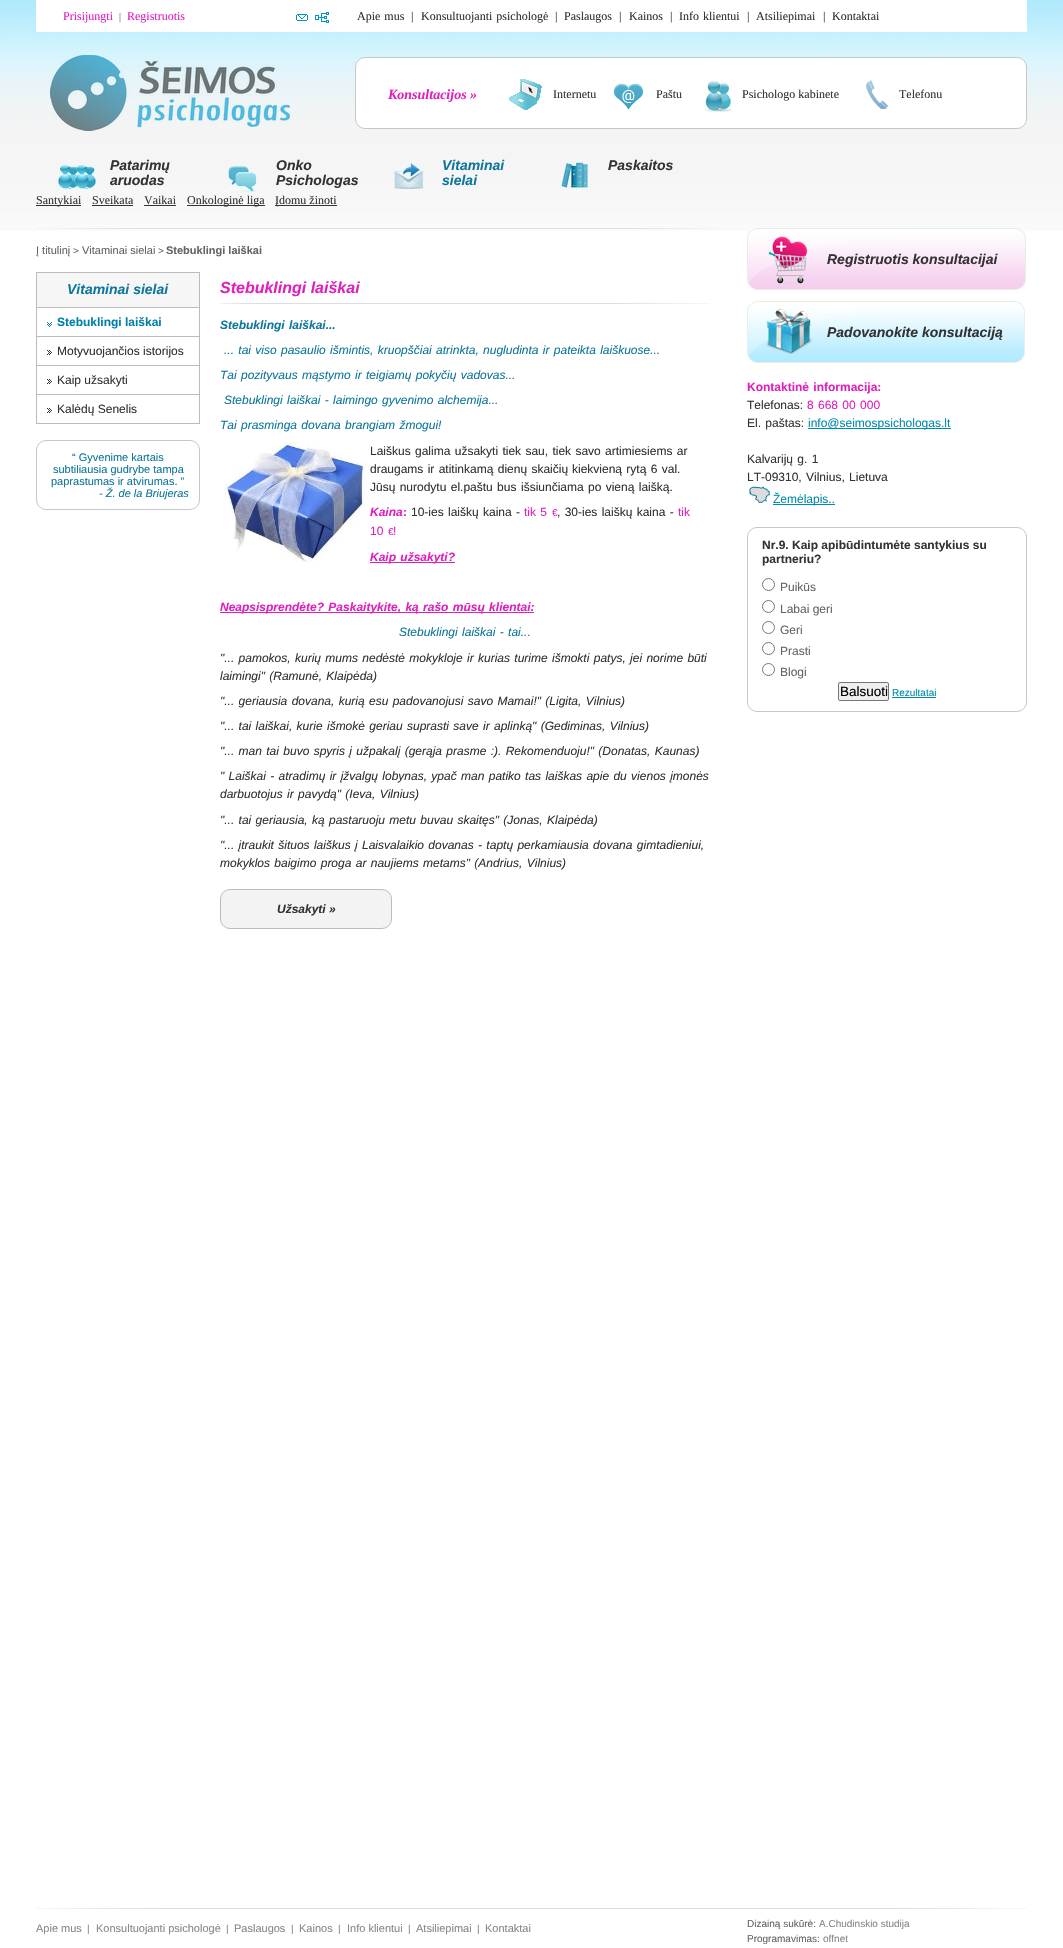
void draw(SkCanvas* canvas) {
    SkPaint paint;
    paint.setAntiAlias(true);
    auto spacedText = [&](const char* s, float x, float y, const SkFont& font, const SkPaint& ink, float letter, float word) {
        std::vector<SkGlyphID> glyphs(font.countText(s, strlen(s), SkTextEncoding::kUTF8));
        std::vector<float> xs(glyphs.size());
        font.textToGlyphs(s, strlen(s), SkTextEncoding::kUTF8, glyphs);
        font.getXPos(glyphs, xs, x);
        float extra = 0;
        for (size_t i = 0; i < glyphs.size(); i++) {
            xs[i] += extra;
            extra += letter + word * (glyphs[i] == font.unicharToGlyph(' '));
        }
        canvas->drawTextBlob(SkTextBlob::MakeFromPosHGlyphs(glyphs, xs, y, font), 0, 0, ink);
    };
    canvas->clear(0xFFFFFFFF);
    canvas->drawImageRect(SkImages::DeferredFromEncodedData(SkData::MakeFromFileName("img1.png")), SkRect::MakeXYWH(0, 0, 1063, 231), SkSamplingOptions());
    paint.setColor(0xFFFFFFFF);
    canvas->drawRect(SkRect::MakeXYWH(36, 0, 991, 32), paint);
    SkFont font1(fontMgr->matchFamilyStyle("Liberation Serif", SkFontStyle::Normal()), 12);
    font1.setSubpixel(true);
    paint.setColor(0xFFDF20BD);
    canvas->drawString("Prisijungti", 63, 20, font1, paint);
    SkFont font2(fontMgr->matchFamilyStyle("Liberation Serif", SkFontStyle::Normal()), 10);
    font2.setSubpixel(true);
    paint.setColor(0xFF626467);
    canvas->drawString("|", 119, 20, font2, paint);
    paint.setColor(0xFFDF20BD);
    canvas->drawString("Registruotis", 127, 20, font1, paint);
    canvas->drawImageRect(SkImages::DeferredFromEncodedData(SkData::MakeFromFileName("img2.png")), SkRect::MakeXYWH(296, 14, 12, 7), SkSamplingOptions());
    canvas->drawImageRect(SkImages::DeferredFromEncodedData(SkData::MakeFromFileName("img3.png")), SkRect::MakeXYWH(315, 12, 14, 11), SkSamplingOptions());
    paint.setColor(0xFF333333);
    spacedText("Apie mus", 357, 20, font1, paint, 0, 1);
    spacedText("|", 411, 20, font1, paint, 1, 0);
    spacedText("Konsultuojanti psichologė", 421, 20, font1, paint, 0, 1);
    spacedText("|", 555, 20, font1, paint, 1, 0);
    canvas->drawString("Paslaugos", 564, 20, font1, paint);
    spacedText("|", 619, 20, font1, paint, 1, 0);
    canvas->drawString("Kainos", 629, 20, font1, paint);
    spacedText("|", 670, 20, font1, paint, 1, 0);
    spacedText("Info klientui", 679, 20, font1, paint, 0, 1);
    spacedText("|", 747, 20, font1, paint, 1, 0);
    canvas->drawString("Atsiliepimai", 756, 20, font1, paint);
    spacedText("|", 823, 20, font1, paint, 1, 0);
    canvas->drawString("Kontaktai", 832, 20, font1, paint);
    canvas->drawImageRect(SkImages::DeferredFromEncodedData(SkData::MakeFromFileName("img4.png")), SkRect::MakeXYWH(50, 55, 240, 76), SkSamplingOptions());
    paint.setColor(0xFFFFFFFF);
    canvas->drawRoundRect(SkRect::MakeXYWH(355.5f, 57.5f, 671, 71), 9.5f, 9.5f, paint);
    paint.setStyle(SkPaint::kStroke_Style);
    paint.setStrokeWidth(1);
    paint.setColor(0xFFC7C7C7);
    canvas->drawRoundRect(SkRect::MakeXYWH(355.5f, 57.5f, 671, 71), 9.5f, 9.5f, paint);
    SkFont font3(fontMgr->matchFamilyStyle("Liberation Serif", SkFontStyle::BoldItalic()), 14);
    font3.setSubpixel(true);
    paint.setStyle(SkPaint::kFill_Style);
    paint.setColor(0xFFDF20BD);
    canvas->drawString("Konsultacijos »", 388, 99, font3, paint);
    canvas->drawImageRect(SkImages::DeferredFromEncodedData(SkData::MakeFromFileName("img5.png")), SkRect::MakeXYWH(509, 79, 33, 32), SkSamplingOptions());
    paint.setColor(0xFF333333);
    canvas->drawString("Internetu", 553, 98, font1, paint);
    canvas->drawImageRect(SkImages::DeferredFromEncodedData(SkData::MakeFromFileName("img6.png")), SkRect::MakeXYWH(613, 83, 31, 29), SkSamplingOptions());
    canvas->drawString("Paštu", 656, 98, font1, paint);
    canvas->drawImageRect(SkImages::DeferredFromEncodedData(SkData::MakeFromFileName("img7.png")), SkRect::MakeXYWH(703, 80, 29, 32), SkSamplingOptions());
    canvas->drawString("Psichologo kabinete", 742, 98, font1, paint);
    canvas->drawImageRect(SkImages::DeferredFromEncodedData(SkData::MakeFromFileName("img8.png")), SkRect::MakeXYWH(865, 80, 23, 29), SkSamplingOptions());
    canvas->drawString("Telefonu", 899, 98, font1, paint);
    canvas->drawImageRect(SkImages::DeferredFromEncodedData(SkData::MakeFromFileName("img9.png")), SkRect::MakeXYWH(58, 165, 38, 24), SkSamplingOptions());
    SkFont font4(fontMgr->matchFamilyStyle("Liberation Sans", SkFontStyle::BoldItalic()), 14);
    font4.setSubpixel(true);
    canvas->drawString("Patarimų", 110, 170, font4, paint);
    canvas->drawString("aruodas", 110, 185, font4, paint);
    canvas->drawImageRect(SkImages::DeferredFromEncodedData(SkData::MakeFromFileName("img10.png")), SkRect::MakeXYWH(228, 166, 29, 26), SkSamplingOptions());
    canvas->drawString("Onko", 276, 170, font4, paint);
    canvas->drawString("Psichologas", 276, 185, font4, paint);
    canvas->drawImageRect(SkImages::DeferredFromEncodedData(SkData::MakeFromFileName("img11.png")), SkRect::MakeXYWH(394, 163, 30, 26), SkSamplingOptions());
    paint.setColor(0xFF0F779B);
    canvas->drawString("Vitaminai", 442, 170, font4, paint);
    canvas->drawString("sielai", 442, 185, font4, paint);
    canvas->drawImageRect(SkImages::DeferredFromEncodedData(SkData::MakeFromFileName("img12.png")), SkRect::MakeXYWH(561, 162, 27, 26), SkSamplingOptions());
    paint.setColor(0xFF333333);
    canvas->drawString("Paskaitos", 608, 170, font4, paint);
    canvas->drawRect(SkRect::MakeXYWH(36, 205, 45, 1), paint);
    canvas->drawString("Santykiai", 36, 204, font1, paint);
    canvas->drawString("Sveikata", 92, 204, font1, paint);
    canvas->drawRect(SkRect::MakeXYWH(92, 205, 41, 1), paint);
    canvas->drawString("Vaikai", 144, 204, font1, paint);
    canvas->drawRect(SkRect::MakeXYWH(144, 205, 32, 1), paint);
    canvas->drawRect(SkRect::MakeXYWH(187, 205, 78, 1), paint);
    canvas->drawString("Onkologinė liga", 187, 204, font1, paint);
    canvas->drawRect(SkRect::MakeXYWH(275, 205, 62, 1), paint);
    canvas->drawString("Įdomu žinoti", 275, 204, font1, paint);
    canvas->drawImageRect(SkImages::DeferredFromEncodedData(SkData::MakeFromFileName("img13.png")), SkRect::MakeXYWH(36, 228, 685, 1), SkSamplingOptions());
    SkFont font5(fontMgr->matchFamilyStyle("Liberation Sans", SkFontStyle::Normal()), 11);
    font5.setSubpixel(true);
    paint.setColor(0xFF626467);
    canvas->drawString("Į titulinį", 36, 254, font5, paint);
    SkFont font6(fontMgr->matchFamilyStyle("Liberation Sans", SkFontStyle::Normal()), 10);
    font6.setSubpixel(true);
    canvas->drawString(">", 73, 254, font6, paint);
    canvas->drawString("Vitaminai sielai", 82, 254, font5, paint);
    canvas->drawString(">", 158, 254, font6, paint);
    SkFont font7(fontMgr->matchFamilyStyle("Liberation Sans", SkFontStyle::Bold()), 11);
    font7.setSubpixel(true);
    canvas->drawString("Stebuklingi laiškai", 166, 254, font7, paint);
    paint.setColor(0xFFF6F6F6);
    canvas->drawRect(SkRect::MakeXYWH(37, 273, 162, 34), paint);
    paint.setColor(0xFFBCBCBC);
    canvas->drawRect(SkRect::MakeXYWH(36, 272, 164, 1), paint);
    canvas->drawRect(SkRect::MakeXYWH(199, 272, 1, 152), paint);
    canvas->drawRect(SkRect::MakeXYWH(36, 272, 1, 35), paint);
    paint.setColor(0xFF0F779B);
    canvas->drawString("Vitaminai sielai", 67, 294, font4, paint);
    paint.setColor(0xFFBCBCBC);
    canvas->drawRect(SkRect::MakeXYWH(36, 423, 164, 1), paint);
    canvas->drawRect(SkRect::MakeXYWH(36, 307, 1, 117), paint);
    canvas->drawImageRect(SkImages::DeferredFromEncodedData(SkData::MakeFromFileName("img14.png")), SkRect::MakeXYWH(47, 322, 5, 5), SkSamplingOptions());
    canvas->drawRect(SkRect::MakeXYWH(37, 307, 162, 1), paint);
    SkFont font8(fontMgr->matchFamilyStyle("Liberation Sans", SkFontStyle::Bold()), 12);
    font8.setSubpixel(true);
    paint.setColor(0xFF007FA8);
    canvas->drawString("Stebuklingi laiškai", 57, 326, font8, paint);
    canvas->drawImageRect(SkImages::DeferredFromEncodedData(SkData::MakeFromFileName("img15.png")), SkRect::MakeXYWH(47, 350, 5, 5), SkSamplingOptions());
    paint.setColor(0xFFBCBCBC);
    canvas->drawRect(SkRect::MakeXYWH(37, 336, 162, 1), paint);
    SkFont font9(fontMgr->matchFamilyStyle("Liberation Sans", SkFontStyle::Normal()), 12);
    font9.setSubpixel(true);
    paint.setColor(0xFF333333);
    canvas->drawString("Motyvuojančios istorijos", 57, 355, font9, paint);
    canvas->drawImageRect(SkImages::DeferredFromEncodedData(SkData::MakeFromFileName("img15.png")), SkRect::MakeXYWH(47, 379, 5, 5), SkSamplingOptions());
    paint.setColor(0xFFBCBCBC);
    canvas->drawRect(SkRect::MakeXYWH(37, 365, 162, 1), paint);
    paint.setColor(0xFF333333);
    canvas->drawString("Kaip užsakyti", 57, 384, font9, paint);
    canvas->drawImageRect(SkImages::DeferredFromEncodedData(SkData::MakeFromFileName("img15.png")), SkRect::MakeXYWH(47, 408, 5, 5), SkSamplingOptions());
    paint.setColor(0xFFBCBCBC);
    canvas->drawRect(SkRect::MakeXYWH(37, 394, 162, 1), paint);
    paint.setColor(0xFF333333);
    canvas->drawString("Kalėdų Senelis", 57, 413, font9, paint);
    paint.setStyle(SkPaint::kStroke_Style);
    paint.setColor(0xFFC7C7C7);
    canvas->drawRoundRect(SkRect::MakeXYWH(36.5f, 440.5f, 163, 69), 9.5f, 9.5f, paint);
    paint.setStyle(SkPaint::kFill_Style);
    paint.setColor(0xFF0F779B);
    canvas->drawString("“ Gyvenime kartais", 72, 461, font5, paint);
    canvas->drawString("subtiliausia gudrybe tampa", 53, 473, font5, paint);
    canvas->drawString("paprastumas ir atvirumas. ”", 51, 485, font5, paint);
    SkFont font10(fontMgr->matchFamilyStyle("Liberation Sans", SkFontStyle::Italic()), 11);
    font10.setSubpixel(true);
    canvas->drawString("- Ž. de la Briujeras", 99, 497, font10, paint);
    canvas->drawImageRect(SkImages::DeferredFromEncodedData(SkData::MakeFromFileName("img16.png")), SkRect::MakeXYWH(220, 303, 490, 1), SkSamplingOptions());
    SkFont font11(fontMgr->matchFamilyStyle("Liberation Sans", SkFontStyle::BoldItalic()), 16);
    font11.setSubpixel(true);
    paint.setColor(0xFFDF20BD);
    canvas->drawString("Stebuklingi laiškai", 220, 293, font11, paint);
    SkFont font12(fontMgr->matchFamilyStyle("Liberation Sans", SkFontStyle::BoldItalic()), 12);
    font12.setSubpixel(true);
    paint.setColor(0xFF0F779B);
    spacedText("Stebuklingi laiškai...", 220, 329, font12, paint, 0, 1);
    SkFont font13(fontMgr->matchFamilyStyle("Liberation Sans", SkFontStyle::Italic()), 12);
    font13.setSubpixel(true);
    spacedText("... tai viso pasaulio išmintis, kruopščiai atrinkta, nugludinta ir pateikta laiškuose...", 224, 354, font13, paint, 0, 1);
    spacedText("Tai pozityvaus mąstymo ir teigiamų pokyčių vadovas...", 220, 379, font13, paint, 0, 1);
    spacedText("Stebuklingi laiškai - laimingo gyvenimo alchemija...", 224, 404, font13, paint, 0, 1);
    spacedText("Tai prasminga dovana brangiam žmogui!", 220, 429, font13, paint, 0, 1);
    canvas->drawImageRect(SkImages::DeferredFromEncodedData(SkData::MakeFromFileName("img17.png")), SkRect::MakeXYWH(225, 442, 140, 120), SkSamplingOptions());
    paint.setColor(0xFF333333);
    spacedText("Laiškus galima užsakyti tiek sau, tiek savo artimiesiems ar", 370, 455, font9, paint, 0, 1);
    spacedText("draugams ir atitinkamą dienų skaičių", 370, 473, font9, paint, 0, 1);
    spacedText("kiekvieną rytą 6 val.", 572, 473, font9, paint, 0, 1);
    spacedText("Jūsų nurodytu el.paštu bus", 370, 491, font9, paint, 0, 1);
    spacedText("išsiunčiama po vieną laišką.", 521, 491, font9, paint, 0, 1);
    paint.setColor(0xFFDF20BD);
    canvas->drawString("Kaina", 370, 516, font12, paint);
    canvas->drawString(":", 403, 516, font8, paint);
    paint.setColor(0xFF333333);
    spacedText("10-ies laiškų kaina -", 411, 516, font9, paint, 0, 1);
    paint.setColor(0xFFDF20BD);
    spacedText("tik 5", 524, 516, font9, paint, 0, 1);
    canvas->drawString("€", 552, 516, font6, paint);
    paint.setColor(0xFF333333);
    spacedText(", 30-ies laiškų kaina -", 557, 516, font9, paint, 0, 1);
    paint.setColor(0xFFDF20BD);
    canvas->drawString("tik", 678, 516, font9, paint);
    canvas->drawString("10", 370, 535, font9, paint);
    canvas->drawString("€", 388, 535, font6, paint);
    canvas->drawString("!", 393, 535, font9, paint);
    canvas->drawRect(SkRect::MakeXYWH(370, 562, 85, 1), paint);
    spacedText("Kaip užsakyti?", 370, 561, font12, paint, 0, 1);
    canvas->drawRect(SkRect::MakeXYWH(220, 612, 314, 1), paint);
    spacedText("Neapsisprendėte? Paskaitykite, ką rašo mūsų klientai:", 220, 611, font12, paint, 0, 1);
    paint.setColor(0xFF0F779B);
    spacedText("Stebuklingi laiškai - tai...", 399, 636, font13, paint, 0, 1);
    paint.setColor(0xFF333333);
    spacedText("\"... pamokos, kurių mums nedėstė mokykloje ir kurias turime išmokti patys, jei norime būti", 220, 662, font13, paint, 0, 1);
    spacedText("laimingi\" (Ramunė, Klaipėda)", 220, 680, font13, paint, 0, 1);
    spacedText("\"... geriausia dovana, kurią esu padovanojusi savo Mamai!\" (Ligita, Vilnius)", 220, 705, font13, paint, 0, 1);
    spacedText("\"... tai laiškai, kurie išmokė geriau suprasti save ir aplinką\" (Gediminas, Vilnius)", 220, 730, font13, paint, 0, 1);
    spacedText("\"... man tai buvo spyris į užpakalį (gerąja prasme :). Rekomenduoju!\" (Donatas, Kaunas)", 220, 755, font13, paint, 0, 1);
    spacedText("\" Laiškai - atradimų ir įžvalgų lobynas, ypač man patiko tas laiškas apie du vienos įmonės", 220, 780, font13, paint, 0, 1);
    spacedText("darbuotojus ir pavydą\" (Ieva, Vilnius)", 220, 798, font13, paint, 0, 1);
    spacedText("\"... tai geriausia, ką pastaruoju metu buvau skaitęs\" (Jonas, Klaipėda)", 220, 824, font13, paint, 0, 1);
    spacedText("\"... įtraukit šituos laiškus į Laisvalaikio dovanas - taptų perkamiausia dovana gimtadieniui,", 220, 849, font13, paint, 0, 1);
    spacedText("mokyklos baigimo proga ar naujiems metams\" (Andrius, Vilnius)", 220, 867, font13, paint, 0, 1);
    paint.setColor(0xFFF3F3F3);
    canvas->drawRoundRect(SkRect::MakeXYWH(220.5f, 889.5f, 171, 39), 9.5f, 9.5f, paint);
    paint.setStyle(SkPaint::kStroke_Style);
    paint.setColor(0xFFBCBCBC);
    canvas->drawRoundRect(SkRect::MakeXYWH(220.5f, 889.5f, 171, 39), 9.5f, 9.5f, paint);
    paint.setStyle(SkPaint::kFill_Style);
    paint.setColor(0xFF333333);
    canvas->drawString("Užsakyti »", 277, 913, font12, paint);
    canvas->drawImageRect(SkImages::DeferredFromEncodedData(SkData::MakeFromFileName("img18.png")), SkRect::MakeXYWH(747, 228, 279, 62), SkSamplingOptions());
    canvas->drawString("Registruotis konsultacijai", 827, 264, font4, paint);
    canvas->drawImageRect(SkImages::DeferredFromEncodedData(SkData::MakeFromFileName("img19.png")), SkRect::MakeXYWH(747, 301, 278, 62), SkSamplingOptions());
    canvas->drawString("Padovanokite konsultaciją", 827, 337, font4, paint);
    paint.setColor(0xFFDF20BD);
    spacedText("Kontaktinė informacija:", 747, 391, font8, paint, 0, 1);
    paint.setColor(0xFF333333);
    canvas->drawString("Telefonas:", 747, 409, font9, paint);
    paint.setColor(0xFFDF20BD);
    spacedText("8 668 00 000", 807, 409, font9, paint, 0, 1);
    paint.setColor(0xFF333333);
    spacedText("El. paštas:", 747, 427, font9, paint, 0, 1);
    paint.setColor(0xFF008CAD);
    canvas->drawRect(SkRect::MakeXYWH(808, 428, 143, 1), paint);
    canvas->drawString("info@seimospsichologas.lt", 808, 427, font9, paint);
    paint.setColor(0xFF333333);
    spacedText("Kalvarijų g. 1", 747, 463, font9, paint, 0, 1);
    spacedText("LT-09310, Vilnius, Lietuva", 747, 481, font9, paint, 0, 1);
    canvas->drawImageRect(SkImages::DeferredFromEncodedData(SkData::MakeFromFileName("img20.png")), SkRect::MakeXYWH(749, 486, 21, 17), SkSamplingOptions());
    paint.setColor(0xFF008CAD);
    canvas->drawRect(SkRect::MakeXYWH(773, 504, 62, 1), paint);
    canvas->drawString("Žemėlapis..", 773, 503, font9, paint);
    paint.setStyle(SkPaint::kStroke_Style);
    paint.setColor(0xFFC7C7C7);
    canvas->drawRoundRect(SkRect::MakeXYWH(747.5f, 527.5f, 279, 184), 9.5f, 9.5f, paint);
    paint.setStyle(SkPaint::kFill_Style);
    paint.setColor(0xFF333333);
    canvas->drawString("Nr.9. Kaip apibūdintumėte santykius su", 762, 549, font8, paint);
    canvas->drawString("partneriu?", 762, 563, font8, paint);
    paint.setStyle(SkPaint::kStroke_Style);
    paint.setColor(0xFF767676);
    canvas->drawCircle(768.5f, 584.5f, 6, paint);
    paint.setStyle(SkPaint::kFill_Style);
    paint.setColor(0xFF626467);
    canvas->drawString("Puikūs", 780, 591, font9, paint);
    paint.setStyle(SkPaint::kStroke_Style);
    paint.setColor(0xFF767676);
    canvas->drawCircle(768.5f, 606.5f, 6, paint);
    paint.setStyle(SkPaint::kFill_Style);
    paint.setColor(0xFF626467);
    canvas->drawString("Labai geri", 780, 613, font9, paint);
    paint.setStyle(SkPaint::kStroke_Style);
    paint.setColor(0xFF767676);
    canvas->drawCircle(768.5f, 627.5f, 6, paint);
    paint.setStyle(SkPaint::kFill_Style);
    paint.setColor(0xFF626467);
    canvas->drawString("Geri", 780, 634, font9, paint);
    paint.setStyle(SkPaint::kStroke_Style);
    paint.setColor(0xFF767676);
    canvas->drawCircle(768.5f, 648.5f, 6, paint);
    paint.setStyle(SkPaint::kFill_Style);
    paint.setColor(0xFF626467);
    canvas->drawString("Prasti", 780, 655, font9, paint);
    paint.setStyle(SkPaint::kStroke_Style);
    paint.setColor(0xFF767676);
    canvas->drawCircle(768.5f, 669.5f, 6, paint);
    paint.setStyle(SkPaint::kFill_Style);
    paint.setColor(0xFF626467);
    canvas->drawString("Blogi", 780, 676, font9, paint);
    paint.setColor(0xFFEFEFEF);
    canvas->drawRoundRect(SkRect::MakeXYWH(838.5f, 682.5f, 50, 18), 1.5f, 1.5f, paint);
    paint.setStyle(SkPaint::kStroke_Style);
    paint.setColor(0xFF767676);
    canvas->drawRoundRect(SkRect::MakeXYWH(838.5f, 682.5f, 50, 18), 1.5f, 1.5f, paint);
    SkFont font14(fontMgr->matchFamilyStyle("Liberation Sans", SkFontStyle::Normal()), 13.5f);
    font14.setSubpixel(true);
    paint.setStyle(SkPaint::kFill_Style);
    paint.setColor(0xFF000000);
    canvas->drawString("Balsuoti", 840, 696, font14, paint);
    paint.setColor(0xFF008CAD);
    canvas->drawString("Rezultatai", 892, 696, font6, paint);
    canvas->drawRect(SkRect::MakeXYWH(892, 697, 44, 1), paint);
    canvas->drawImageRect(SkImages::DeferredFromEncodedData(SkData::MakeFromFileName("img21.png")), SkRect::MakeXYWH(36, 1908, 991, 1), SkSamplingOptions());
    paint.setColor(0xFF898686);
    canvas->drawString("Apie mus", 36, 1932, font5, paint);
    canvas->drawString("|", 87, 1932, font6, paint);
    canvas->drawString("Konsultuojanti psichologė", 96, 1932, font5, paint);
    canvas->drawString("|", 226, 1932, font6, paint);
    canvas->drawString("Paslaugos", 234, 1932, font5, paint);
    canvas->drawString("|", 291, 1932, font6, paint);
    canvas->drawString("Kainos", 299, 1932, font5, paint);
    canvas->drawString("|", 338, 1932, font6, paint);
    canvas->drawString("Info klientui", 347, 1932, font5, paint);
    canvas->drawString("|", 408, 1932, font6, paint);
    canvas->drawString("Atsiliepimai", 416, 1932, font5, paint);
    canvas->drawString("|", 477, 1932, font6, paint);
    canvas->drawString("Kontaktai", 485, 1932, font5, paint);
    paint.setColor(0xFF626467);
    canvas->drawString("Dizainą sukūrė:", 747, 1927, font6, paint);
    paint.setColor(0xFF898686);
    canvas->drawString("A.Chudinskio studija", 819, 1927, font6, paint);
    paint.setColor(0xFF626467);
    canvas->drawString("Programavimas:", 747, 1942, font6, paint);
    paint.setColor(0xFF898686);
    canvas->drawString("offnet", 823, 1942, font6, paint);
}
